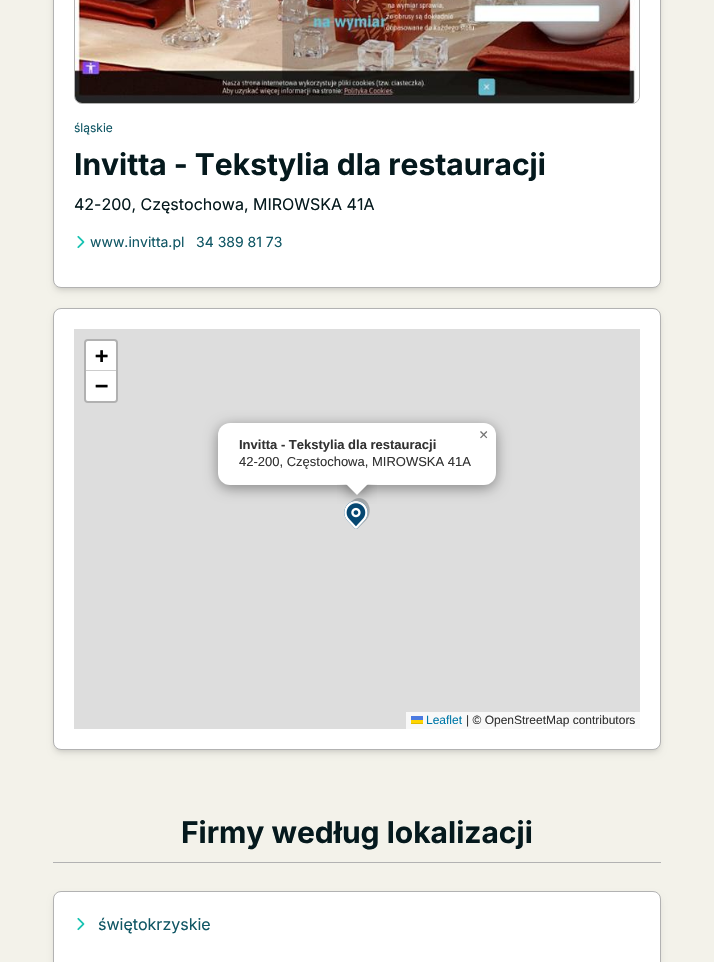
void draw(SkCanvas* canvas) {
    SkPaint paint;
    paint.setAntiAlias(true);
    canvas->clear(0xFFF3F2EA);
    paint.setColor(0x1A000000);
    paint.setMaskFilter(SkMaskFilter::MakeBlur(kNormal_SkBlurStyle, 2));
    canvas->drawRoundRect(SkRect::MakeXYWH(55, -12, 604, 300), 6, 6, paint);
    paint.setMaskFilter(nullptr);
    paint.setMaskFilter(SkMaskFilter::MakeBlur(kNormal_SkBlurStyle, 3));
    canvas->drawRoundRect(SkRect::MakeXYWH(54, -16, 606, 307), 7, 7, paint);
    paint.setMaskFilter(nullptr);
    paint.setColor(0xFFFFFFFF);
    canvas->drawRoundRect(SkRect::MakeXYWH(53.5f, -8.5f, 607, 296), 7.5f, 7.5f, paint);
    paint.setStyle(SkPaint::kStroke_Style);
    paint.setStrokeWidth(1);
    paint.setColor(0xFFB2B2B2);
    canvas->drawRoundRect(SkRect::MakeXYWH(53.5f, -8.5f, 607, 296), 7.5f, 7.5f, paint);
    canvas->drawRoundRect(SkRect::MakeXYWH(74.5f, -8.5f, 565, 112), 7.5f, 7.5f, paint);
    canvas->drawImageRect(SkImages::DeferredFromEncodedData(SkData::MakeFromFileName("img1.png")), SkRect::MakeXYWH(75, 0, 564, 103), SkSamplingOptions());
    SkFont font1(fontMgr->matchFamilyStyle("Inter", SkFontStyle::Normal()), 12);
    font1.setSubpixel(true);
    paint.setStyle(SkPaint::kFill_Style);
    paint.setColor(0xFF115765);
    canvas->drawString("śląskie", 74, 132, font1, paint);
    SkFont font2(fontMgr->matchFamilyStyle("Inter", SkFontStyle::Bold()), 30);
    font2.setSubpixel(true);
    paint.setColor(0xFF05191D);
    canvas->drawString("Invitta - Tekstylia dla restauracji", 74, 175, font2, paint);
    SkFont font3(fontMgr->matchFamilyStyle("Inter", SkFontStyle::Normal()), 16);
    font3.setSubpixel(true);
    canvas->drawString("42-200, Częstochowa, MIROWSKA 41A", 74, 210, font3, paint);
    canvas->drawImageRect(SkImages::DeferredFromEncodedData(SkData::MakeFromFileName("img2.png")), SkRect::MakeXYWH(77, 235, 8, 14), SkSamplingOptions());
    SkFont font4(fontMgr->matchFamilyStyle("Inter", SkFontStyle::Normal()), 14);
    font4.setSubpixel(true);
    paint.setColor(0xFF115765);
    canvas->drawString("www.invitta.pl", 90, 247, font4, paint);
    canvas->drawString("34 389 81 73", 196, 247, font4, paint);
    paint.setColor(0x1A000000);
    paint.setMaskFilter(SkMaskFilter::MakeBlur(kNormal_SkBlurStyle, 2));
    canvas->drawRoundRect(SkRect::MakeXYWH(55, 312, 604, 438), 6, 6, paint);
    paint.setMaskFilter(nullptr);
    paint.setMaskFilter(SkMaskFilter::MakeBlur(kNormal_SkBlurStyle, 3));
    canvas->drawRoundRect(SkRect::MakeXYWH(54, 313, 606, 440), 7, 7, paint);
    paint.setMaskFilter(nullptr);
    paint.setColor(0xFFFFFFFF);
    canvas->drawRoundRect(SkRect::MakeXYWH(53.5f, 308.5f, 607, 441), 7.5f, 7.5f, paint);
    paint.setStyle(SkPaint::kStroke_Style);
    paint.setColor(0xFFB2B2B2);
    canvas->drawRoundRect(SkRect::MakeXYWH(53.5f, 308.5f, 607, 441), 7.5f, 7.5f, paint);
    paint.setStyle(SkPaint::kFill_Style);
    paint.setColor(0xFFDDDDDD);
    canvas->drawRect(SkRect::MakeXYWH(74, 329, 566, 400), paint);
    paint.setStyle(SkPaint::kStroke_Style);
    paint.setStrokeWidth(2);
    paint.setColor(0xFFB1B1B1);
    canvas->drawRoundRect(SkRect::MakeXYWH(85, 340, 32, 62), 3, 3, paint);
    paint.setStyle(SkPaint::kFill_Style);
    paint.setColor(0xFFFFFFFF);
    canvas->drawPath(SkPathBuilder().moveTo(88, 341).lineTo(114, 341).cubicTo(115, 341, 116, 342, 116, 343).lineTo(116, 370).lineTo(86, 370).lineTo(86, 343).cubicTo(86, 342, 87, 341, 88, 341).close().detach(), paint);
    paint.setColor(0xFFCCCCCC);
    canvas->drawRect(SkRect::MakeXYWH(86, 370, 30, 1), paint);
    SkFont font5(fontMgr->matchFamilyStyle("DejaVu Sans Mono", SkFontStyle::Bold()), 22);
    font5.setSubpixel(true);
    paint.setColor(0xFF000000);
    canvas->drawString("+", 95, 363, font5, paint);
    paint.setColor(0xFFFFFFFF);
    canvas->drawPath(SkPathBuilder().moveTo(86, 371).lineTo(116, 371).lineTo(116, 399).cubicTo(116, 400, 115, 401, 114, 401).lineTo(88, 401).cubicTo(87, 401, 86, 400, 86, 399).close().detach(), paint);
    paint.setColor(0xFF000000);
    canvas->drawString("−", 95, 393, font5, paint);
    paint.setColor(0xFFF8F8F8);
    canvas->drawRect(SkRect::MakeXYWH(406, 712, 234, 17), paint);
    SkFont font6(fontMgr->matchFamilyStyle("Liberation Sans", SkFontStyle::Normal()), 12);
    font6.setSubpixel(true);
    paint.setColor(0xFF0078A8);
    canvas->drawString("Leaflet", 426, 724, font6, paint);
    paint.setColor(0xFF4C7BE1);
    canvas->drawRect(SkRect::MakeXYWH(411, 716, 12, 4), paint);
    paint.setColor(0xFFFFD500);
    canvas->drawRect(SkRect::MakeXYWH(411, 720, 12, 3), paint);
    paint.setColor(0xFFE0BC00);
    canvas->drawRect(SkRect::MakeXYWH(411, 723, 12, 1), paint);
    paint.setColor(0xFF333333);
    canvas->drawString("| © OpenStreetMap contributors", 466, 724, font6, paint);
    canvas->drawImageRect(SkImages::DeferredFromEncodedData(SkData::MakeFromFileName("img3.png")), SkRect::MakeXYWH(344, 498, 26, 31), SkSamplingOptions());
    paint.setColor(0x66000000);
    paint.setMaskFilter(SkMaskFilter::MakeBlur(kNormal_SkBlurStyle, 7));
    canvas->drawRoundRect(SkRect::MakeXYWH(218, 426, 278, 62), 12, 12, paint);
    paint.setMaskFilter(nullptr);
    paint.setColor(0xFFFFFFFF);
    canvas->drawRoundRect(SkRect::MakeXYWH(218, 423, 278, 62), 12, 12, paint);
    SkFont font7(fontMgr->matchFamilyStyle("Liberation Sans", SkFontStyle::Normal()), 16);
    font7.setSubpixel(true);
    paint.setColor(0xFF757575);
    canvas->drawString("×", 479, 440, font7, paint);
    SkFont font8(fontMgr->matchFamilyStyle("Liberation Sans", SkFontStyle::Bold()), 13);
    font8.setSubpixel(true);
    paint.setColor(0xFF333333);
    canvas->drawString("Invitta - Tekstylia dla restauracji", 239, 449, font8, paint);
    SkFont font9(fontMgr->matchFamilyStyle("Liberation Sans", SkFontStyle::Normal()), 13);
    font9.setSubpixel(true);
    canvas->drawString("42-200, Częstochowa, MIROWSKA 41A", 239, 466, font9, paint);
    canvas->save();
    canvas->clipRect(SkRect::MakeXYWH(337, 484, 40, 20));
    paint.setColor(0x66000000);
    paint.setMaskFilter(SkMaskFilter::MakeBlur(kNormal_SkBlurStyle, 7));
    canvas->drawRect(SkRect::MakeXYWH(349, 477, 17, 17), paint);
    paint.setMaskFilter(nullptr);
    canvas->restore();
    canvas->save();
    canvas->clipRect(SkRect::MakeXYWH(337, 484, 40, 20));
    paint.setColor(0xFFFFFFFF);
    canvas->drawPath(SkPathBuilder().moveTo(357, 470.5f).lineTo(369, 483).lineTo(357, 495).lineTo(345, 483).close().detach(), paint);
    canvas->restore();
    paint.setColor(0xFFB2B2B2);
    canvas->drawRect(SkRect::MakeXYWH(53, 862, 608, 1), paint);
    paint.setColor(0xFF05191D);
    canvas->drawString("Firmy według lokalizacji", 181, 843, font2, paint);
    paint.setColor(0x1A000000);
    paint.setMaskFilter(SkMaskFilter::MakeBlur(kNormal_SkBlurStyle, 3));
    canvas->drawRoundRect(SkRect::MakeXYWH(54, 896, 606, 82), 7, 7, paint);
    paint.setMaskFilter(nullptr);
    paint.setColor(0xFFFFFFFF);
    canvas->drawRoundRect(SkRect::MakeXYWH(53.5f, 891.5f, 607, 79), 7.5f, 7.5f, paint);
    paint.setStyle(SkPaint::kStroke_Style);
    paint.setStrokeWidth(1);
    paint.setColor(0xFFB2B2B2);
    canvas->drawRoundRect(SkRect::MakeXYWH(53.5f, 891.5f, 607, 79), 7.5f, 7.5f, paint);
    canvas->drawImageRect(SkImages::DeferredFromEncodedData(SkData::MakeFromFileName("img2.png")), SkRect::MakeXYWH(77, 917, 8, 14), SkSamplingOptions());
    paint.setStyle(SkPaint::kFill_Style);
    paint.setColor(0xFF115765);
    canvas->drawString("świętokrzyskie", 98, 930, font3, paint);
}
